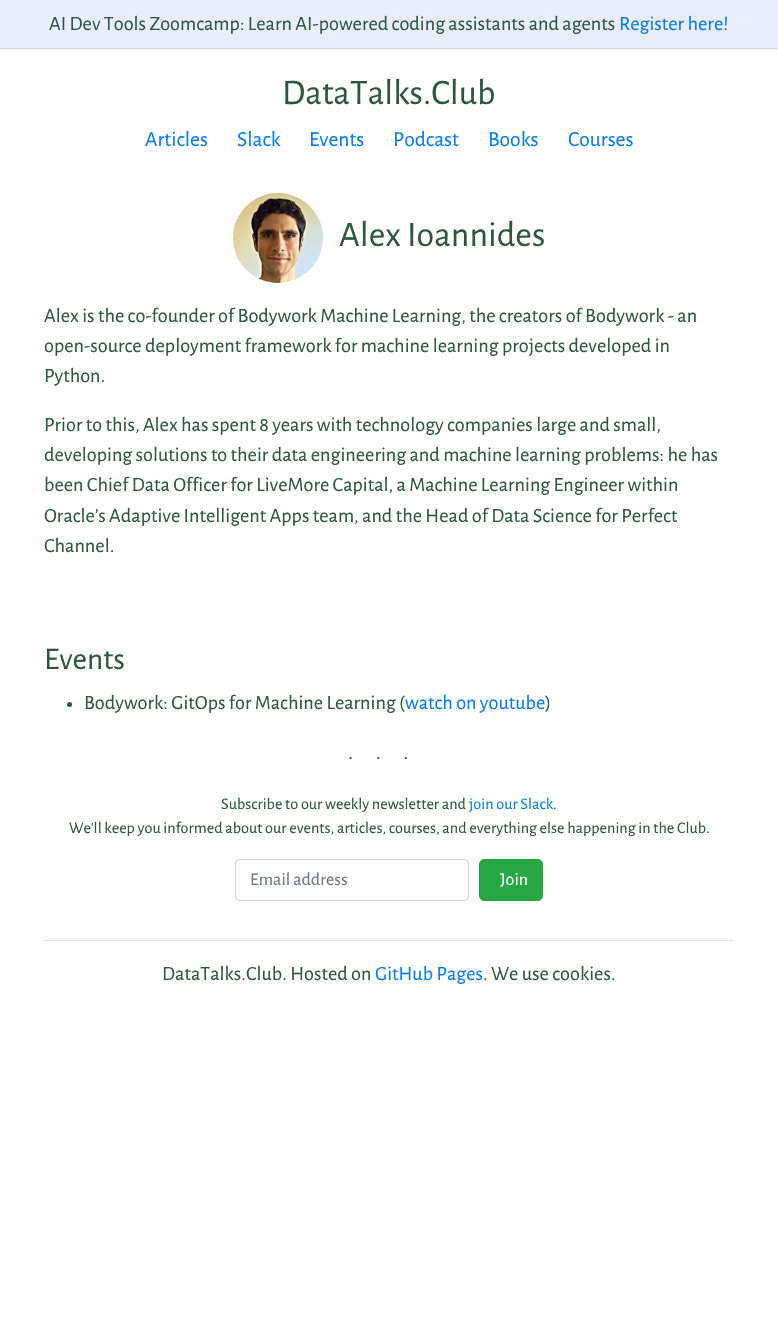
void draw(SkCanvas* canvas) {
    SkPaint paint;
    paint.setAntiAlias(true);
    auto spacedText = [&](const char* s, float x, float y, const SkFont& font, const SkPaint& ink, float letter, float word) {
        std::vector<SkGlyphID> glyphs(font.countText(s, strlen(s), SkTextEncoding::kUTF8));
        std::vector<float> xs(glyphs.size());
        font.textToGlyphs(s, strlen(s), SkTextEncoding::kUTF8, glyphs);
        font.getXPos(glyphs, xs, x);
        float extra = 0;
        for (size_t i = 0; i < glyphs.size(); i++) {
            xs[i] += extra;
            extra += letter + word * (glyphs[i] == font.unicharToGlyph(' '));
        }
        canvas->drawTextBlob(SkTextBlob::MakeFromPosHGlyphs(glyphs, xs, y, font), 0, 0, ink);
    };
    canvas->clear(0xFFFFFFFF);
    paint.setColor(0xFFEAEDFD);
    canvas->drawRect(SkRect::MakeXYWH(0, 0, 778, 48), paint);
    paint.setColor(0xFFD3D5E4);
    canvas->drawRect(SkRect::MakeXYWH(0, 48, 778, 1), paint);
    SkFont font1(fontMgr->matchFamilyStyle("Alegreya Sans", SkFontStyle::Normal()), 20.25f);
    font1.setSubpixel(true);
    paint.setColor(0xFF2C573E);
    canvas->drawString("AI Dev Tools Zoomcamp: Learn AI-powered coding assistants and agents", 49, 30, font1, paint);
    paint.setColor(0xFF007BFF);
    canvas->drawString("Register here!", 619, 30, font1, paint);
    SkFont font2(fontMgr->matchFamilyStyle("Alegreya Sans", SkFontStyle::Normal()), 36);
    font2.setSubpixel(true);
    paint.setColor(0xFF2C573E);
    canvas->drawString("DataTalks.Club", 282, 104, font2, paint);
    SkFont font3(fontMgr->matchFamilyStyle("Alegreya Sans", SkFontStyle::Normal()), 21.5f);
    font3.setSubpixel(true);
    paint.setColor(0xFF007BFF);
    canvas->drawString("Articles", 145, 146, font3, paint);
    canvas->drawString("Slack", 237, 146, font3, paint);
    canvas->drawString("Events", 309, 146, font3, paint);
    canvas->drawString("Podcast", 393, 146, font3, paint);
    canvas->drawString("Books", 488, 146, font3, paint);
    canvas->drawString("Courses", 568, 146, font3, paint);
    canvas->drawImageRect(SkImages::DeferredFromEncodedData(SkData::MakeFromFileName("img1.png")), SkRect::MakeXYWH(233, 193, 90, 90), SkSamplingOptions());
    paint.setColor(0xFF2C573E);
    canvas->drawString("Alex Ioannides", 339, 246, font2, paint);
    canvas->drawString("Alex is the co-founder of Bodywork Machine Learning, the creators of Bodywork - an", 44, 322, font1, paint);
    canvas->drawString("open-source deployment framework for machine learning projects developed in", 44, 352, font1, paint);
    canvas->drawString("Python.", 44, 382, font1, paint);
    canvas->drawString("Prior to this, Alex has spent 8 years with technology companies large and small,", 44, 431, font1, paint);
    canvas->drawString("developing solutions to their data engineering and machine learning problems: he has", 44, 461, font1, paint);
    canvas->drawString("been Chief Data Officer for LiveMore Capital, a Machine Learning Engineer within", 44, 491, font1, paint);
    canvas->drawString("Oracle’s Adaptive Intelligent Apps team, and the Head of Data Science for Perfect", 44, 522, font1, paint);
    canvas->drawString("Channel.", 44, 552, font1, paint);
    SkFont font4(fontMgr->matchFamilyStyle("Alegreya Sans", SkFontStyle::Normal()), 31.5f);
    font4.setSubpixel(true);
    canvas->drawString("Events", 44, 669, font4, paint);
    canvas->drawCircle(69.5f, 704.5f, 2.5f, paint);
    canvas->drawString("Bodywork: GitOps for Machine Learning (", 84, 709, font1, paint);
    paint.setColor(0xFF007BFF);
    canvas->drawString("watch on youtube", 405, 709, font1, paint);
    paint.setColor(0xFF2C573E);
    canvas->drawString(")", 545, 709, font1, paint);
    SkFont font5(fontMgr->matchFamilyStyle("Alegreya Sans", SkFontStyle::Normal()), 22.5f);
    font5.setSubpixel(true);
    spacedText("...", 348, 759, font5, paint, 22.5f, 0);
    SkFont font6(fontMgr->matchFamilyStyle("Alegreya Sans", SkFontStyle::Normal()), 16.2f);
    font6.setSubpixel(true);
    canvas->drawString("Subscribe to our weekly newsletter and", 221, 809, font6, paint);
    paint.setColor(0xFF007BFF);
    canvas->drawString("join our Slack", 469, 809, font6, paint);
    paint.setColor(0xFF2C573E);
    canvas->drawString(".", 553, 809, font6, paint);
    canvas->drawString("We'll keep you informed about our events, articles, courses, and everything else happening in the Club.", 69, 833, font6, paint);
    paint.setStyle(SkPaint::kStroke_Style);
    paint.setStrokeWidth(1);
    paint.setColor(0xFFCED4DA);
    canvas->drawRoundRect(SkRect::MakeXYWH(235.5f, 859.5f, 233, 41), 4.5f, 4.5f, paint);
    SkFont font7(fontMgr->matchFamilyStyle("Alegreya Sans", SkFontStyle::Normal()), 18);
    font7.setSubpixel(true);
    paint.setStyle(SkPaint::kFill_Style);
    paint.setColor(0xFF6C757D);
    canvas->drawString("Email address", 250, 885, font7, paint);
    paint.setColor(0xFF28A745);
    canvas->drawRoundRect(SkRect::MakeXYWH(479.5f, 859.5f, 63, 41), 4.5f, 4.5f, paint);
    paint.setStyle(SkPaint::kStroke_Style);
    canvas->drawRoundRect(SkRect::MakeXYWH(479.5f, 859.5f, 63, 41), 4.5f, 4.5f, paint);
    paint.setStyle(SkPaint::kFill_Style);
    paint.setColor(0xFFFFFFFF);
    canvas->drawString("Join", 500, 885, font7, paint);
    paint.setColor(0xFFE6E6E6);
    canvas->drawRect(SkRect::MakeXYWH(44, 940, 690, 1), paint);
    paint.setColor(0xFF2C573E);
    canvas->drawString("DataTalks.Club. Hosted on", 162, 980, font1, paint);
    paint.setColor(0xFF007BFF);
    canvas->drawString("GitHub Pages", 375, 980, font1, paint);
    paint.setColor(0xFF2C573E);
    canvas->drawString(". We use cookies.", 483, 980, font1, paint);
}
